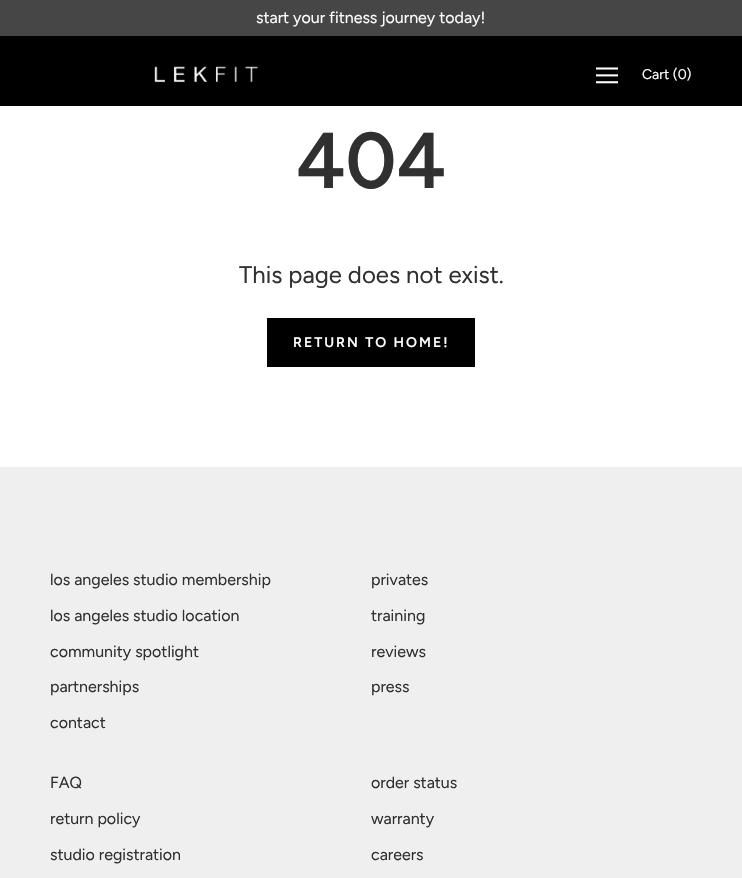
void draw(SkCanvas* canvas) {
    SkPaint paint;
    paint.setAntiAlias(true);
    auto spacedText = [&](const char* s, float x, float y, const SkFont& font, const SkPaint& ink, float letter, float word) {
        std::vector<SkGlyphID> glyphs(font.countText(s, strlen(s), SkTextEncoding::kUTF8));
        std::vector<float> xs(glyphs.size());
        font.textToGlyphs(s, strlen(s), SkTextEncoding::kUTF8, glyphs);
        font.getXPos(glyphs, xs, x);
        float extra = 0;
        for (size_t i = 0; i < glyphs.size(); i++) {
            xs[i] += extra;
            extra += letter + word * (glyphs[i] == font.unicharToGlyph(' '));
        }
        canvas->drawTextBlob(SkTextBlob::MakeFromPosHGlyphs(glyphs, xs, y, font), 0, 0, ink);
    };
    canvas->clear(0xFFFFFFFF);
    paint.setColor(0xFF464646);
    canvas->drawRect(SkRect::MakeXYWH(0, 0, 742, 36), paint);
    SkFont font1(fontMgr->matchFamilyStyle("Figtree", SkFontStyle::Normal()), 16);
    font1.setSubpixel(true);
    paint.setColor(0xFFFFFFFF);
    canvas->drawString("start your fitness journey today!", 256, 23, font1, paint);
    paint.setColor(0xFF000000);
    canvas->drawRect(SkRect::MakeXYWH(0, 36, 742, 70), paint);
    canvas->drawImageRect(SkImages::DeferredFromEncodedData(SkData::MakeFromFileName("img1.png")), SkRect::MakeXYWH(154, 66, 104, 17), SkSamplingOptions());
    canvas->drawImageRect(SkImages::DeferredFromEncodedData(SkData::MakeFromFileName("img2.png")), SkRect::MakeXYWH(596, 67, 22, 17), SkSamplingOptions());
    SkFont font2(fontMgr->matchFamilyStyle("Figtree", SkFontStyle::Normal()), 14);
    font2.setSubpixel(true);
    paint.setColor(0xFFFFFFFF);
    canvas->drawString("Cart (0)", 642, 79, font2, paint);
    SkFont font3(fontMgr->matchFamilyStyle("Figtree", SkFontStyle(600, SkFontStyle::kNormal_Width, SkFontStyle::kUpright_Slant)), 79);
    font3.setSubpixel(true);
    paint.setColor(0xFF303030);
    canvas->drawString("404", 296, 188, font3, paint);
    SkFont font4(fontMgr->matchFamilyStyle("Figtree", SkFontStyle::Normal()), 24);
    font4.setSubpixel(true);
    canvas->drawString("This page does not exist.", 239, 283, font4, paint);
    paint.setColor(0xFF000000);
    canvas->drawRect(SkRect::MakeXYWH(267, 318, 208, 49), paint);
    SkFont font5(fontMgr->matchFamilyStyle("Figtree", SkFontStyle(600, SkFontStyle::kNormal_Width, SkFontStyle::kUpright_Slant)), 14);
    font5.setSubpixel(true);
    paint.setColor(0xFFFFFFFF);
    spacedText("RETURN TO HOME!", 293, 347, font5, paint, 2, 0);
    paint.setColor(0xFFEFEFEF);
    canvas->drawRect(SkRect::MakeXYWH(0, 467, 742, 411), paint);
    paint.setColor(0xFF303030);
    canvas->drawString("los angeles studio membership", 50, 585, font1, paint);
    canvas->drawString("privates", 371, 585, font1, paint);
    canvas->drawString("los angeles studio location", 50, 621, font1, paint);
    canvas->drawString("training", 371, 621, font1, paint);
    canvas->drawString("community spotlight", 50, 657, font1, paint);
    canvas->drawString("reviews", 371, 657, font1, paint);
    canvas->drawString("partnerships", 50, 692, font1, paint);
    canvas->drawString("press", 371, 692, font1, paint);
    canvas->drawString("contact", 50, 728, font1, paint);
    canvas->drawString("FAQ", 50, 788, font1, paint);
    canvas->drawString("order status", 371, 788, font1, paint);
    canvas->drawString("return policy", 50, 824, font1, paint);
    canvas->drawString("warranty", 371, 824, font1, paint);
    canvas->drawString("studio registration", 50, 860, font1, paint);
    canvas->drawString("careers", 371, 860, font1, paint);
}
